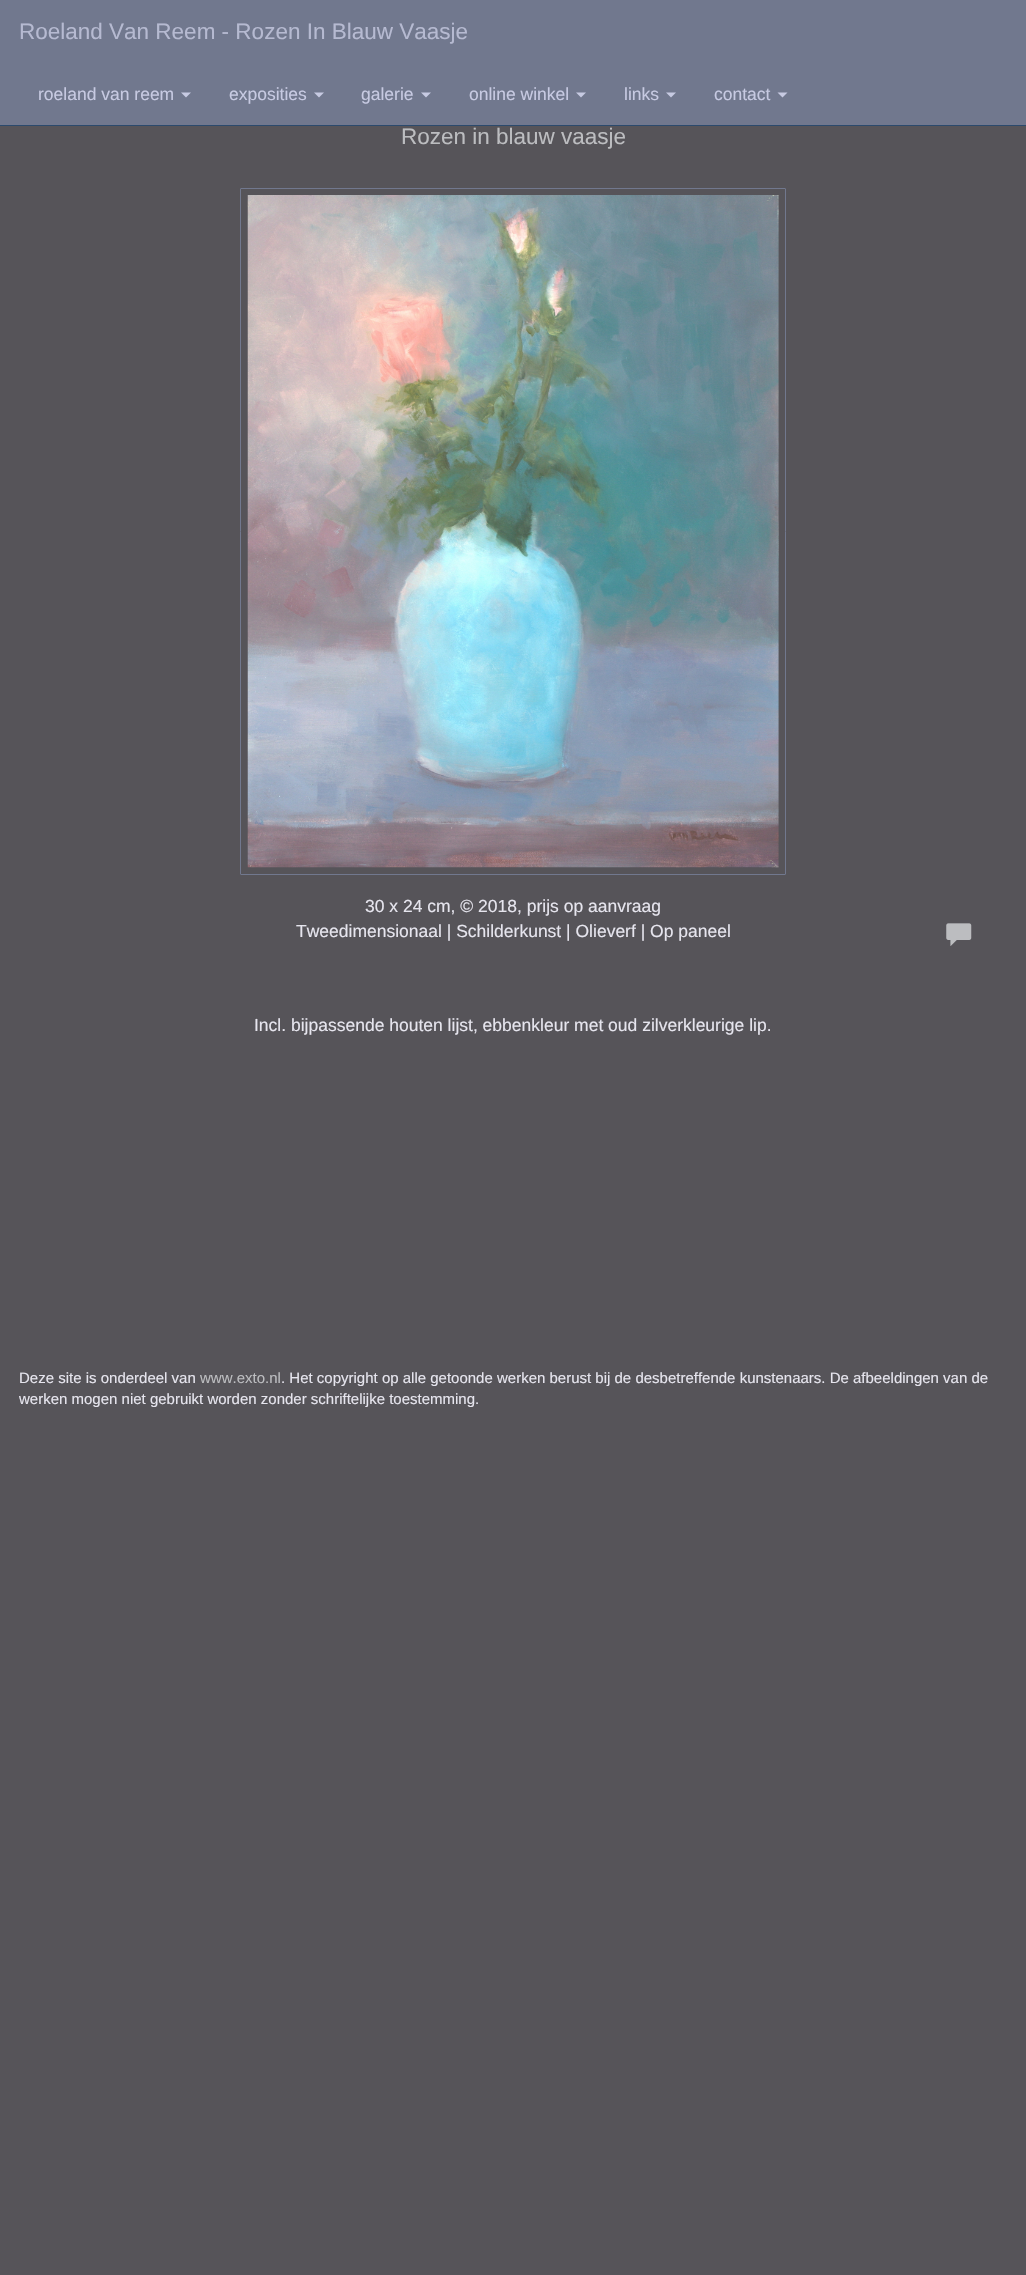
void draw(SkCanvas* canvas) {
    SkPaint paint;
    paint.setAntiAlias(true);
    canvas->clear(0xFF565459);
    paint.setColor(0xFF71788E);
    canvas->drawRect(SkRect::MakeXYWH(0, 0, 1026, 125), paint);
    paint.setColor(0xFF2C4A6D);
    canvas->drawRect(SkRect::MakeXYWH(0, 125, 1026, 1), paint);
    SkFont font1(fontMgr->matchFamilyStyle("Liberation Sans", SkFontStyle::Normal()), 22.5f);
    font1.setSubpixel(true);
    paint.setColor(0xFFB6BAD1);
    canvas->drawString("Roeland Van Reem - Rozen In Blauw Vaasje", 19, 39, font1, paint);
    SkFont font2(fontMgr->matchFamilyStyle("Liberation Sans", SkFontStyle::Normal()), 17.5f);
    font2.setSubpixel(true);
    paint.setColor(0xFFC7CAE2);
    canvas->drawString("roeland van reem", 38, 100, font2, paint);
    canvas->drawPath(SkPathBuilder().moveTo(181, 92.5f).lineTo(191, 92.5f).lineTo(186, 97.5f).close().detach(), paint);
    canvas->drawString("exposities", 229, 100, font2, paint);
    canvas->drawPath(SkPathBuilder().moveTo(314, 92.5f).lineTo(324, 92.5f).lineTo(319, 97.5f).close().detach(), paint);
    canvas->drawString("galerie", 361, 100, font2, paint);
    canvas->drawPath(SkPathBuilder().moveTo(421, 92.5f).lineTo(431, 92.5f).lineTo(426, 97.5f).close().detach(), paint);
    canvas->drawString("online winkel", 469, 100, font2, paint);
    canvas->drawPath(SkPathBuilder().moveTo(576, 92.5f).lineTo(586, 92.5f).lineTo(581, 97.5f).close().detach(), paint);
    canvas->drawString("links", 624, 100, font2, paint);
    canvas->drawPath(SkPathBuilder().moveTo(666, 92.5f).lineTo(676, 92.5f).lineTo(671, 97.5f).close().detach(), paint);
    canvas->drawString("contact", 714, 100, font2, paint);
    canvas->drawPath(SkPathBuilder().moveTo(777.5f, 92.5f).lineTo(787.5f, 92.5f).lineTo(782.5f, 97.5f).close().detach(), paint);
    paint.setColor(0xFFBCBDC0);
    canvas->drawString("Rozen in blauw vaasje", 401, 144, font1, paint);
    paint.setStyle(SkPaint::kStroke_Style);
    paint.setStrokeWidth(1);
    paint.setColor(0xFF71788E);
    canvas->drawRoundRect(SkRect::MakeXYWH(240.5f, 188.5f, 545, 686), 0.5f, 0.5f, paint);
    canvas->drawImageRect(SkImages::DeferredFromEncodedData(SkData::MakeFromFileName("img1.png")), SkRect::MakeXYWH(247, 195, 532, 673), SkSamplingOptions());
    paint.setStyle(SkPaint::kFill_Style);
    paint.setColor(0xFFE6E5EE);
    canvas->drawString("30 x 24 cm, © 2018, prijs op aanvraag", 365, 912, font2, paint);
    canvas->drawString("Tweedimensionaal | Schilderkunst | Olieverf | Op paneel", 296, 937, font2, paint);
    canvas->drawImageRect(SkImages::DeferredFromEncodedData(SkData::MakeFromFileName("img2.png")), SkRect::MakeXYWH(946, 923, 26, 23), SkSamplingOptions());
    canvas->drawString("Incl. bijpassende houten lijst, ebbenkleur met oud zilverkleurige lip.", 254, 1031, font2, paint);
    SkFont font3(fontMgr->matchFamilyStyle("Liberation Sans", SkFontStyle::Normal()), 15);
    font3.setSubpixel(true);
    canvas->drawString("Deze site is onderdeel van", 19, 1383, font3, paint);
    paint.setColor(0xFFBCBDC0);
    canvas->drawString("www.exto.nl", 200, 1383, font3, paint);
    paint.setColor(0xFFE6E5EE);
    canvas->drawString(". Het copyright op alle getoonde werken berust bij de desbetreffende kunstenaars. De afbeeldingen van de", 281, 1383, font3, paint);
    canvas->drawString("werken mogen niet gebruikt worden zonder schriftelijke toestemming.", 19, 1404, font3, paint);
}
